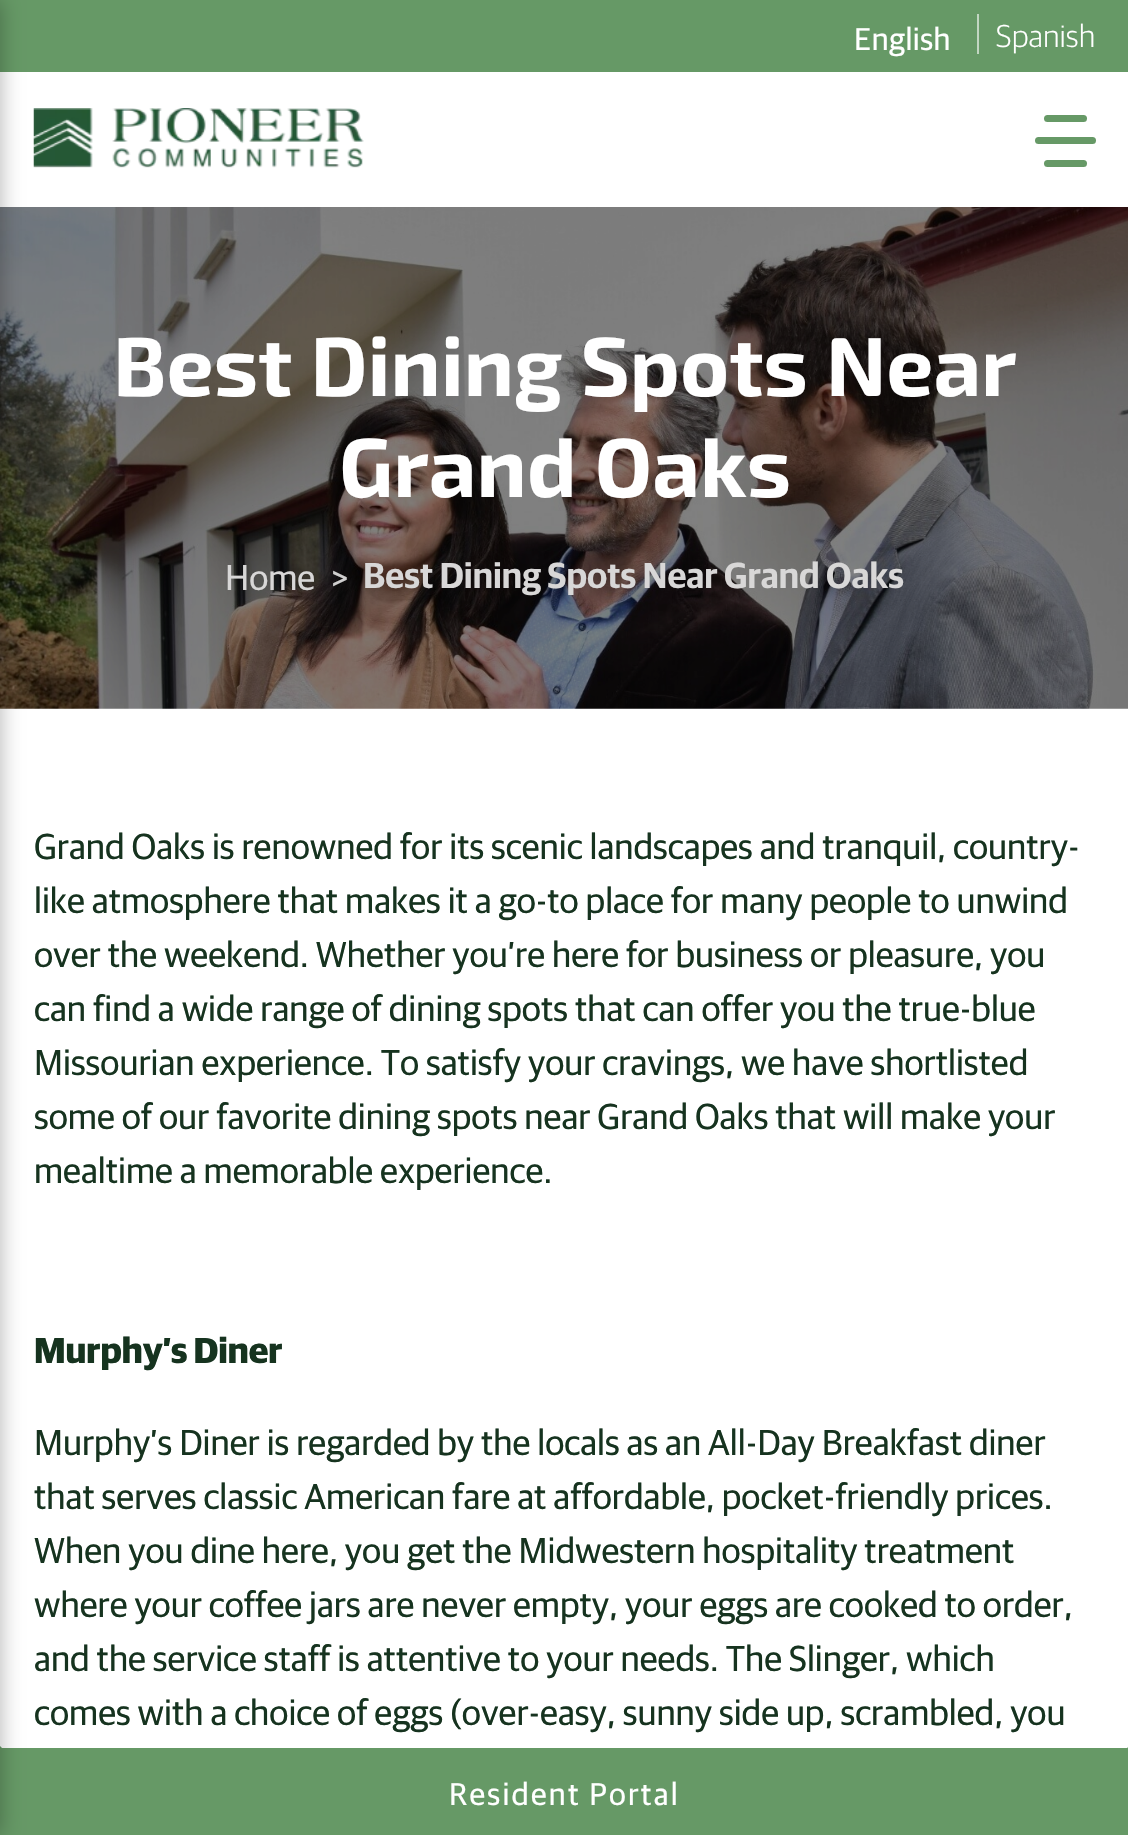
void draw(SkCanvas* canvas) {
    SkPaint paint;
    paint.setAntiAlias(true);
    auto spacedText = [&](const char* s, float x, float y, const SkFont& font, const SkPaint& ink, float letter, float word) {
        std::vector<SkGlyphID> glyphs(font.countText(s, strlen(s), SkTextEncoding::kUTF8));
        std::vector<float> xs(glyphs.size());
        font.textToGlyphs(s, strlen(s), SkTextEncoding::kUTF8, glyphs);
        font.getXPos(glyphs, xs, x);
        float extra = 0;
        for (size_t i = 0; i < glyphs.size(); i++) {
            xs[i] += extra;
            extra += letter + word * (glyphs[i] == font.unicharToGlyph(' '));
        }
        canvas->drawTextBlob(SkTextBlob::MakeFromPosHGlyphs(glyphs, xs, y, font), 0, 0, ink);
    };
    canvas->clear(0xFFFFFFFF);
    paint.setColor(0xFF669966);
    canvas->drawRect(SkRect::MakeXYWH(0, 0, 1128, 72), paint);
    SkFont font1(fontMgr->matchFamilyStyle("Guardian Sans", SkFontStyle::Normal()), 31.5f);
    font1.setSubpixel(true);
    paint.setColor(0xFFFFFFFF);
    spacedText("English", 854, 50, font1, paint, 0.5f, 0);
    SkFont font2(fontMgr->matchFamilyStyle("Guardian Sans", SkFontStyle(300, SkFontStyle::kNormal_Width, SkFontStyle::kUpright_Slant)), 31.5f);
    font2.setSubpixel(true);
    spacedText("Spanish", 996, 47, font2, paint, 0.5f, 0);
    paint.setColor(0xFFC2D6C2);
    canvas->drawRect(SkRect::MakeXYWH(977, 14, 2, 40), paint);
    canvas->drawImageRect(SkImages::DeferredFromEncodedData(SkData::MakeFromFileName("img1.png")), SkRect::MakeXYWH(33, 108, 331, 60), SkSamplingOptions());
    paint.setColor(0xFF669966);
    canvas->drawRect(SkRect::MakeXYWH(0, 1746, 1128, 89), paint);
    paint.setColor(0xFFFFFFFF);
    canvas->drawPath(SkPathBuilder().moveTo(0, 1746).lineTo(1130, 1746).lineTo(1127, 1748).lineTo(2, 1748).close().detach(), paint);
    canvas->drawImageRect(SkImages::DeferredFromEncodedData(SkData::MakeFromFileName("img2.png")), SkRect::MakeXYWH(0, 207, 1128, 502), SkSamplingOptions());
    paint.setColor(0x4D000000);
    paint.setMaskFilter(SkMaskFilter::MakeBlur(kNormal_SkBlurStyle, 11));
    canvas->drawRect(SkRect::MakeXYWH(-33, 0, 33, 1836), paint);
    paint.setMaskFilter(nullptr);
    paint.setColor(0xFF669966);
    canvas->drawRoundRect(SkRect::MakeXYWH(1044, 115, 43, 7), 3.5f, 3.5f, paint);
    canvas->drawRoundRect(SkRect::MakeXYWH(1035, 137, 61, 7), 3.5f, 3.5f, paint);
    canvas->drawRoundRect(SkRect::MakeXYWH(1044, 160, 43, 7), 3.5f, 3.5f, paint);
    paint.setColor(0xFFFFFFFF);
    spacedText("Resident Portal", 449, 1805, font1, paint, 2.25f, 0);
    SkFont font3(fontMgr->matchFamilyStyle("Exo 2", SkFontStyle::Bold()), 83.6f);
    font3.setSubpixel(true);
    canvas->drawString("Best Dining Spots Near", 113, 396, font3, paint);
    canvas->drawString("Grand Oaks", 339, 497, font3, paint);
    SkFont font4(fontMgr->matchFamilyStyle("Guardian Sans", SkFontStyle::Normal()), 36);
    font4.setSubpixel(true);
    paint.setColor(0xFFD8D7D7);
    canvas->drawString("Home", 225, 590, font4, paint);
    paint.setColor(0xFFD0CFCF);
    canvas->drawString(">", 331, 590, font4, paint);
    SkFont font5(fontMgr->matchFamilyStyle("Guardian Sans", SkFontStyle(600, SkFontStyle::kNormal_Width, SkFontStyle::kUpright_Slant)), 36);
    font5.setSubpixel(true);
    paint.setColor(0xFFD8D7D7);
    canvas->drawString("Best Dining Spots Near Grand Oaks", 363, 588, font5, paint);
    paint.setColor(0xFF16331F);
    canvas->drawString("Grand Oaks is renowned for its scenic landscapes and tranquil, country-", 34, 859, font4, paint);
    canvas->drawString("like atmosphere that makes it a go-to place for many people to unwind", 34, 913, font4, paint);
    canvas->drawString("over the weekend. Whether you’re here for business or pleasure, you", 34, 967, font4, paint);
    canvas->drawString("can find a wide range of dining spots that can offer you the true-blue", 34, 1021, font4, paint);
    canvas->drawString("Missourian experience. To satisfy your cravings, we have shortlisted", 34, 1075, font4, paint);
    canvas->drawString("some of our favorite dining spots near Grand Oaks that will make your", 34, 1129, font4, paint);
    canvas->drawString("mealtime a memorable experience.", 34, 1183, font4, paint);
    SkFont font6(fontMgr->matchFamilyStyle("Guardian Sans", SkFontStyle::Bold()), 36);
    font6.setSubpixel(true);
    canvas->drawString("Murphy’s Diner", 34, 1363, font6, paint);
    canvas->drawString("Murphy’s Diner is regarded by the locals as an All-Day Breakfast diner", 34, 1455, font4, paint);
    canvas->drawString("that serves classic American fare at affordable, pocket-friendly prices.", 34, 1509, font4, paint);
    canvas->drawString("When you dine here, you get the Midwestern hospitality treatment", 34, 1563, font4, paint);
    canvas->drawString("where your coffee jars are never empty, your eggs are cooked to order,", 34, 1617, font4, paint);
    canvas->drawString("and the service staff is attentive to your needs. The Slinger, which", 34, 1671, font4, paint);
    canvas->drawString("comes with a choice of eggs (over-easy, sunny side up, scrambled, you", 34, 1725, font4, paint);
}
